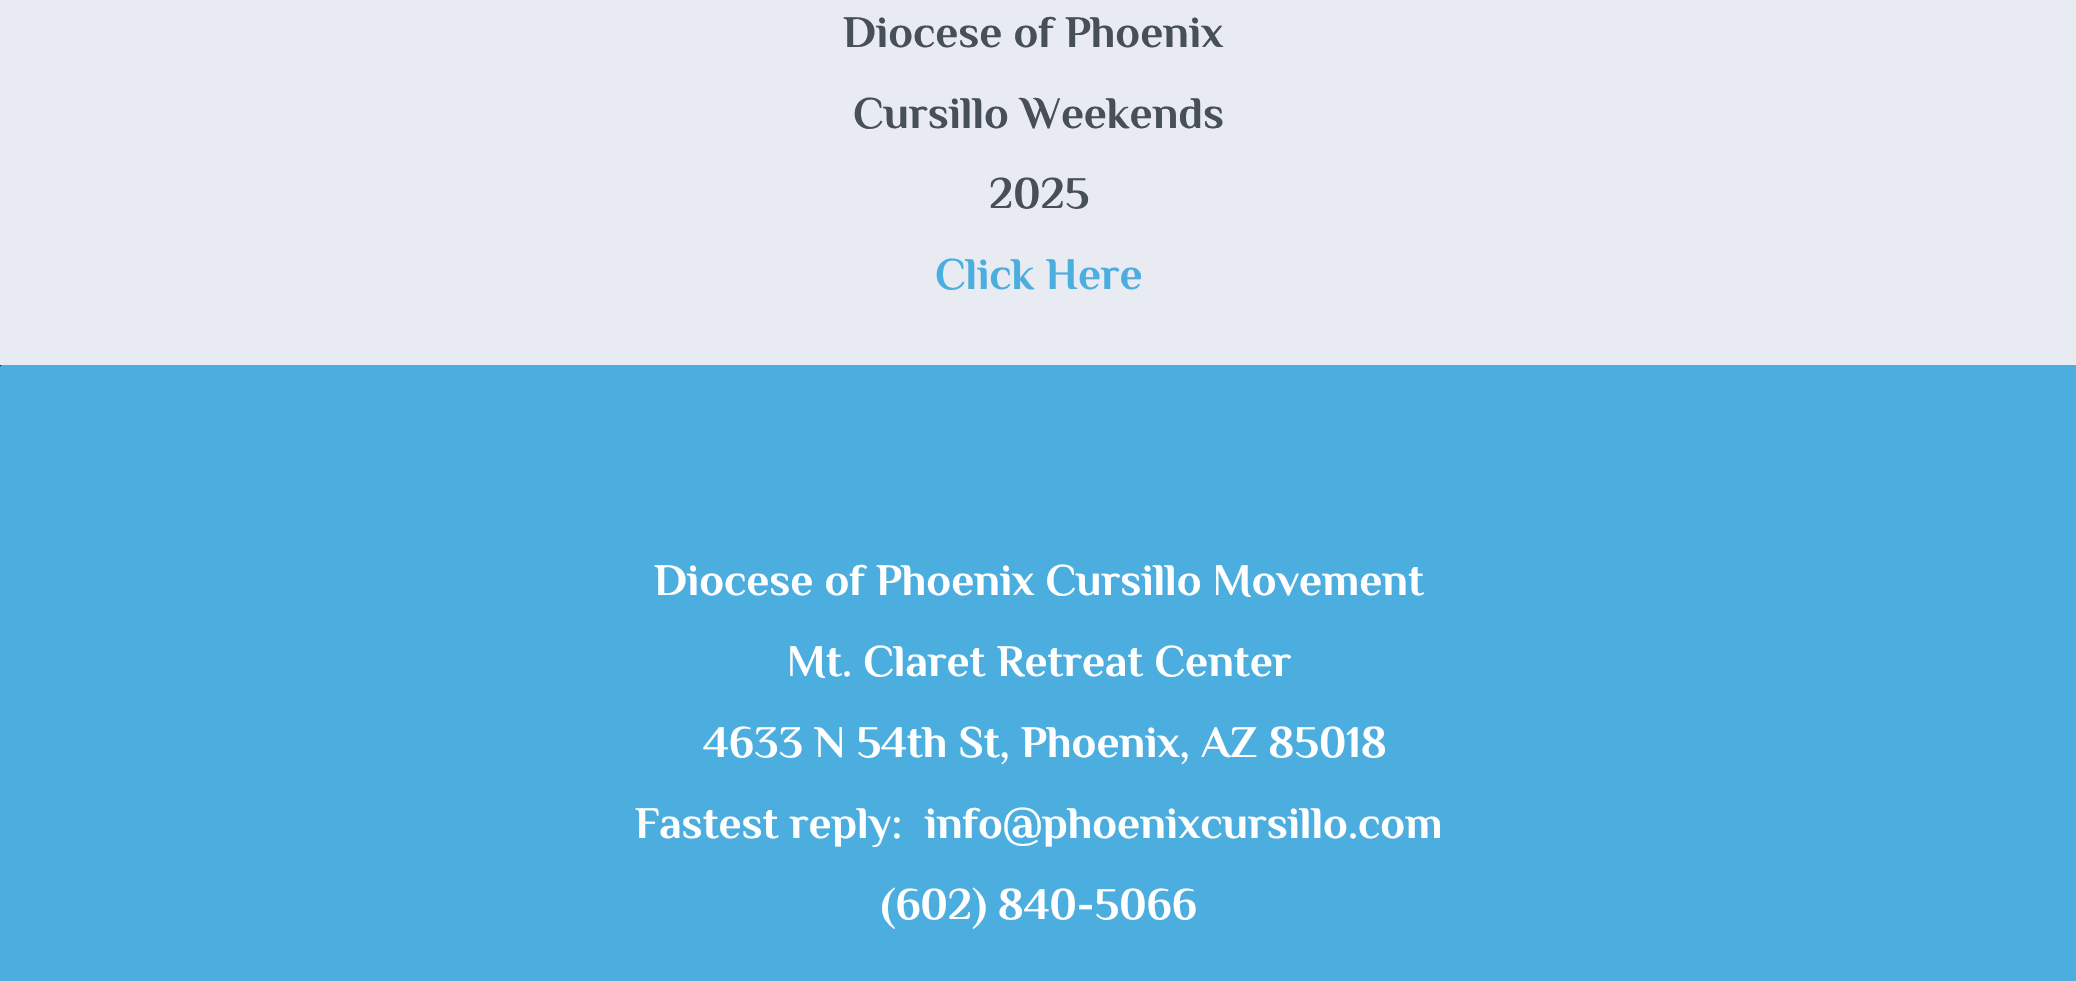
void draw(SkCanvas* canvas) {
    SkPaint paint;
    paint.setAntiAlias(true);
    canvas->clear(0xFFE8EBF2);
    SkFont font1(fontMgr->matchFamilyStyle("Philosopher", SkFontStyle::Bold()), 45);
    font1.setSubpixel(true);
    paint.setColor(0xFF475058);
    canvas->drawString("Diocese of Phoenix", 843, 47, font1, paint);
    canvas->drawString("Cursillo Weekends", 853, 128, font1, paint);
    canvas->drawString("2025", 989, 208, font1, paint);
    paint.setColor(0xFF4CADDF);
    canvas->drawString("Click Here", 935, 289, font1, paint);
    paint.setColor(0xFF012A53);
    canvas->drawRect(SkRect::MakeXYWH(0, 365, 2076, 3), paint);
    paint.setColor(0xFF4CADDF);
    canvas->drawRoundRect(SkRect::MakeXYWH(0, 365, 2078, 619), 2.5f, 2.5f, paint);
    paint.setColor(0xFFFFFFFF);
    canvas->drawString("Diocese of Phoenix Cursillo Movement", 654, 595, font1, paint);
    canvas->drawString("Mt. Claret Retreat Center", 787, 676, font1, paint);
    canvas->drawString("4633 N 54th St, Phoenix, AZ 85018", 703, 757, font1, paint);
    canvas->drawString("Fastest reply:  info@phoenixcursillo.com", 635, 838, font1, paint);
    canvas->drawString("(602) 840-5066", 881, 919, font1, paint);
}
